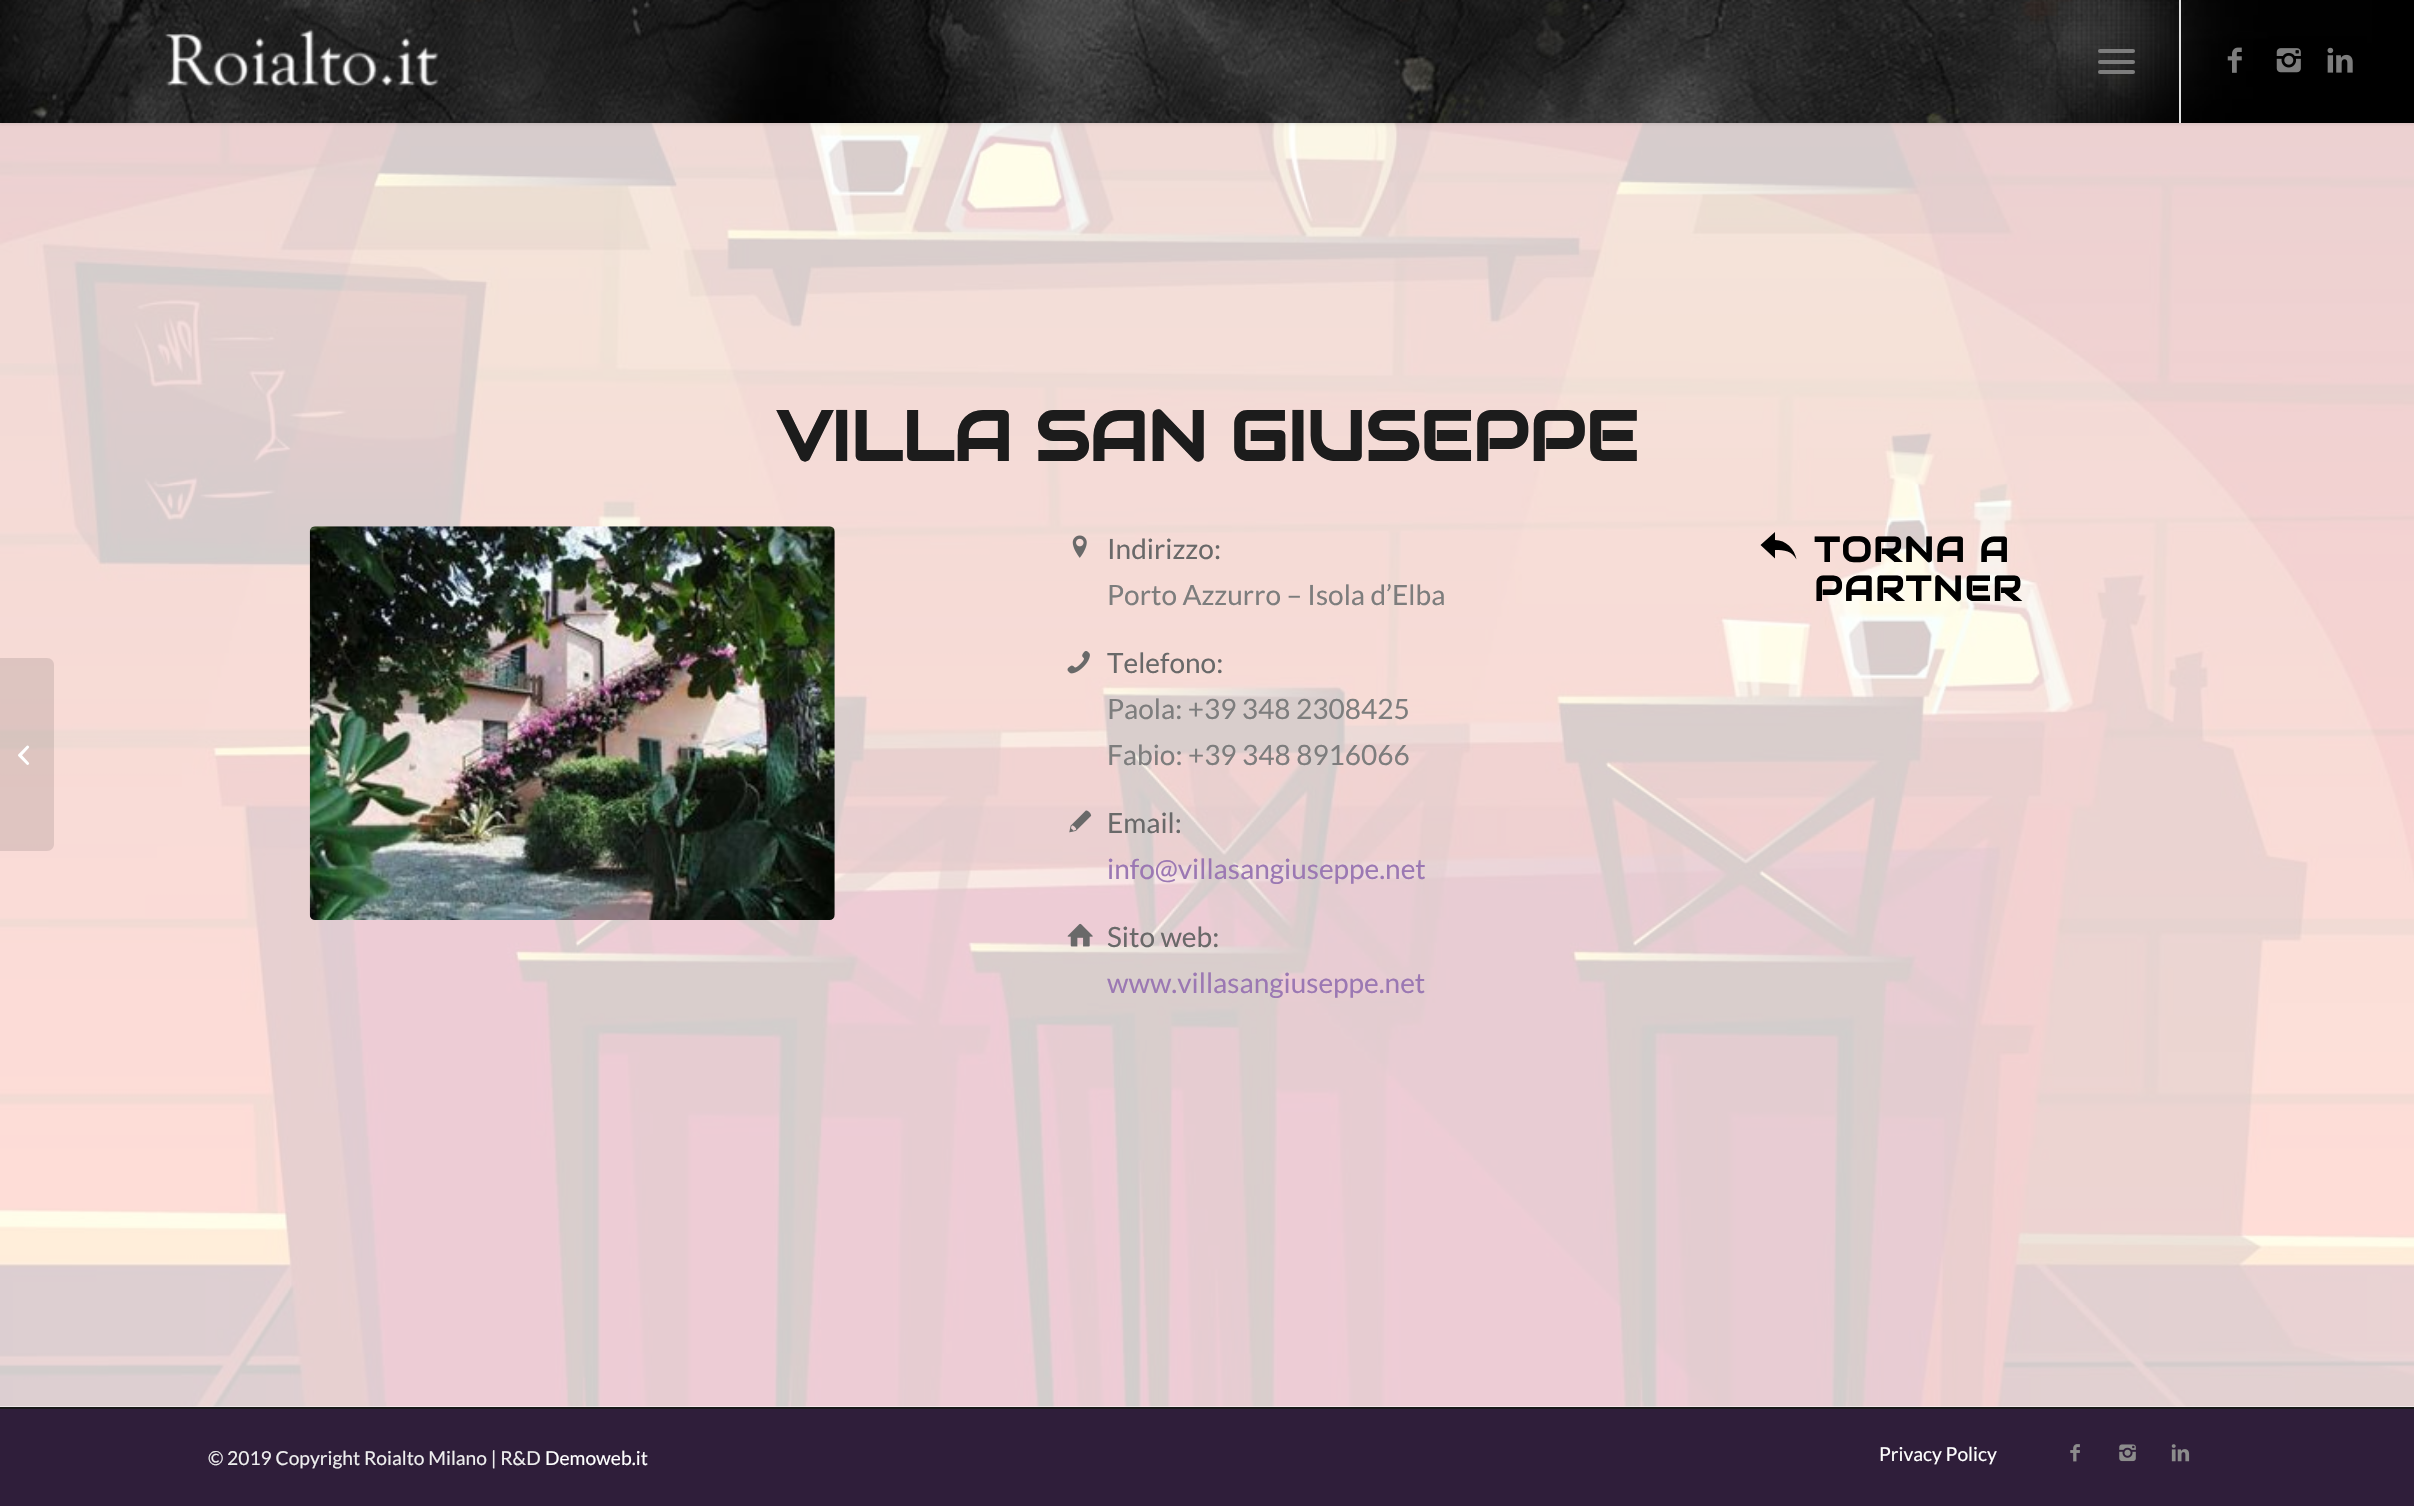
void draw(SkCanvas* canvas) {
    SkPaint paint;
    paint.setAntiAlias(true);
    auto spacedText = [&](const char* s, float x, float y, const SkFont& font, const SkPaint& ink, float letter, float word) {
        std::vector<SkGlyphID> glyphs(font.countText(s, strlen(s), SkTextEncoding::kUTF8));
        std::vector<float> xs(glyphs.size());
        font.textToGlyphs(s, strlen(s), SkTextEncoding::kUTF8, glyphs);
        font.getXPos(glyphs, xs, x);
        float extra = 0;
        for (size_t i = 0; i < glyphs.size(); i++) {
            xs[i] += extra;
            extra += letter + word * (glyphs[i] == font.unicharToGlyph(' '));
        }
        canvas->drawTextBlob(SkTextBlob::MakeFromPosHGlyphs(glyphs, xs, y, font), 0, 0, ink);
    };
    canvas->clear(0xFFFFFFFF);
    canvas->drawImageRect(SkImages::DeferredFromEncodedData(SkData::MakeFromFileName("img7.png")), SkRect::MakeXYWH(0, 123, 2414, 1284), SkSamplingOptions());
    paint.setColor(0x1A000000);
    paint.setMaskFilter(SkMaskFilter::MakeBlur(kNormal_SkBlurStyle, 2));
    canvas->drawRect(SkRect::MakeXYWH(-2, -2, 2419, 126), paint);
    paint.setMaskFilter(nullptr);
    canvas->drawImageRect(SkImages::DeferredFromEncodedData(SkData::MakeFromFileName("img1.png")), SkRect::MakeXYWH(0, 0, 2414, 123), SkSamplingOptions());
    canvas->drawImageRect(SkImages::DeferredFromEncodedData(SkData::MakeFromFileName("img2.png")), SkRect::MakeXYWH(165, 29, 274, 58), SkSamplingOptions());
    paint.setColor(0xFFE1E1E1);
    canvas->drawRect(SkRect::MakeXYWH(2179, 0, 2, 123), paint);
    paint.setColor(0xFF7D7D7D);
    canvas->drawRoundRect(SkRect::MakeXYWH(2098, 60, 37, 4), 2, 2, paint);
    canvas->drawRoundRect(SkRect::MakeXYWH(2098, 49, 37, 4), 2, 2, paint);
    canvas->drawRoundRect(SkRect::MakeXYWH(2098, 70, 37, 4), 2, 2, paint);
    canvas->drawImageRect(SkImages::DeferredFromEncodedData(SkData::MakeFromFileName("img3.png")), SkRect::MakeXYWH(2227, 47, 15, 26), SkSamplingOptions());
    canvas->drawImageRect(SkImages::DeferredFromEncodedData(SkData::MakeFromFileName("img4.png")), SkRect::MakeXYWH(2276, 48, 25, 25), SkSamplingOptions());
    canvas->drawImageRect(SkImages::DeferredFromEncodedData(SkData::MakeFromFileName("img5.png")), SkRect::MakeXYWH(2327, 47, 26, 26), SkSamplingOptions());
    paint.setColor(0x1A000000);
    canvas->drawPath(SkPathBuilder().moveTo(0, 658).lineTo(47, 658).cubicTo(51, 658, 54, 661, 54, 665).lineTo(54, 844).cubicTo(54, 848, 51, 851, 47, 851).lineTo(0, 851).close().detach(), paint);
    canvas->drawImageRect(SkImages::DeferredFromEncodedData(SkData::MakeFromFileName("img6.png")), SkRect::MakeXYWH(18, 745, 12, 20), SkSamplingOptions());
    SkFont font1(fontMgr->matchFamilyStyle("Audiowide", SkFontStyle::Bold()), 70);
    font1.setSubpixel(true);
    paint.setColor(0xFF1C1C1C);
    canvas->drawString("VILLA SAN GIUSEPPE", 777, 461, font1, paint);
    canvas->drawImageRect(SkImages::DeferredFromEncodedData(SkData::MakeFromFileName("img8.png")), SkRect::MakeXYWH(309, 526, 526, 394), SkSamplingOptions());
    canvas->drawImageRect(SkImages::DeferredFromEncodedData(SkData::MakeFromFileName("img9.png")), SkRect::MakeXYWH(1072, 535, 15, 23), SkSamplingOptions());
    SkFont font2(fontMgr->matchFamilyStyle("Lato", SkFontStyle::Normal()), 28);
    font2.setSubpixel(true);
    paint.setColor(0xFF696969);
    canvas->drawString("Indirizzo:", 1107, 559, font2, paint);
    paint.setColor(0xFF7D7D7D);
    canvas->drawString("Porto Azzurro – Isola d’Elba", 1107, 605, font2, paint);
    canvas->drawImageRect(SkImages::DeferredFromEncodedData(SkData::MakeFromFileName("img10.png")), SkRect::MakeXYWH(1067, 651, 23, 23), SkSamplingOptions());
    paint.setColor(0xFF696969);
    canvas->drawString("Telefono:", 1107, 673, font2, paint);
    paint.setColor(0xFF7D7D7D);
    canvas->drawString("Paola: +39 348 2308425", 1107, 719, font2, paint);
    canvas->drawString("Fabio: +39 348 8916066", 1107, 765, font2, paint);
    canvas->drawImageRect(SkImages::DeferredFromEncodedData(SkData::MakeFromFileName("img11.png")), SkRect::MakeXYWH(1069, 810, 23, 23), SkSamplingOptions());
    paint.setColor(0xFF696969);
    canvas->drawString("Email:", 1107, 833, font2, paint);
    paint.setColor(0xFF9B78B3);
    canvas->drawString("info@villasangiuseppe.net", 1107, 879, font2, paint);
    canvas->drawImageRect(SkImages::DeferredFromEncodedData(SkData::MakeFromFileName("img12.png")), SkRect::MakeXYWH(1067, 923, 26, 24), SkSamplingOptions());
    paint.setColor(0xFF696969);
    canvas->drawString("Sito web:", 1107, 947, font2, paint);
    paint.setColor(0xFF9B78B3);
    canvas->drawString("www.villasangiuseppe.net", 1107, 993, font2, paint);
    paint.setColor(0xFF000000);
    canvas->drawPath(SkPathBuilder().moveTo(1796.5f, 559.5f).cubicTo(1792, 551, 1784.5f, 550, 1775, 550).lineTo(1775, 558.5f).lineTo(1760.5f, 545).lineTo(1775, 532).lineTo(1775, 540).cubicTo(1786, 540, 1794.5f, 549, 1796.5f, 559.5f).close().detach(), paint);
    SkFont font3(fontMgr->matchFamilyStyle("Audiowide", SkFontStyle::Bold()), 35);
    font3.setSubpixel(true);
    spacedText("TORNA A", 1814, 562, font3, paint, 1.75f, 0);
    spacedText("PARTNER", 1814, 601, font3, paint, 1.75f, 0);
    paint.setColor(0xFF2F1E3A);
    canvas->drawRect(SkRect::MakeXYWH(0, 1409, 2414, 97), paint);
    paint.setColor(0xFF191919);
    canvas->drawRect(SkRect::MakeXYWH(0, 1407, 2414, 2), paint);
    SkFont font4(fontMgr->matchFamilyStyle("Lato", SkFontStyle::Normal()), 19.25f);
    font4.setSubpixel(true);
    paint.setColor(0xFFEEEEEE);
    canvas->drawString("© 2019 Copyright Roialto Milano | R&D", 208, 1465, font4, paint);
    paint.setColor(0xFFFFFFFF);
    canvas->drawString("Demoweb.it", 545, 1465, font4, paint);
    canvas->drawString("Privacy Policy", 1879, 1461, font4, paint);
    canvas->drawImageRect(SkImages::DeferredFromEncodedData(SkData::MakeFromFileName("img13.png")), SkRect::MakeXYWH(2070, 1444, 10, 18), SkSamplingOptions());
    canvas->drawImageRect(SkImages::DeferredFromEncodedData(SkData::MakeFromFileName("img14.png")), SkRect::MakeXYWH(2119, 1444, 17, 18), SkSamplingOptions());
    canvas->drawImageRect(SkImages::DeferredFromEncodedData(SkData::MakeFromFileName("img15.png")), SkRect::MakeXYWH(2171, 1444, 19, 18), SkSamplingOptions());
}
